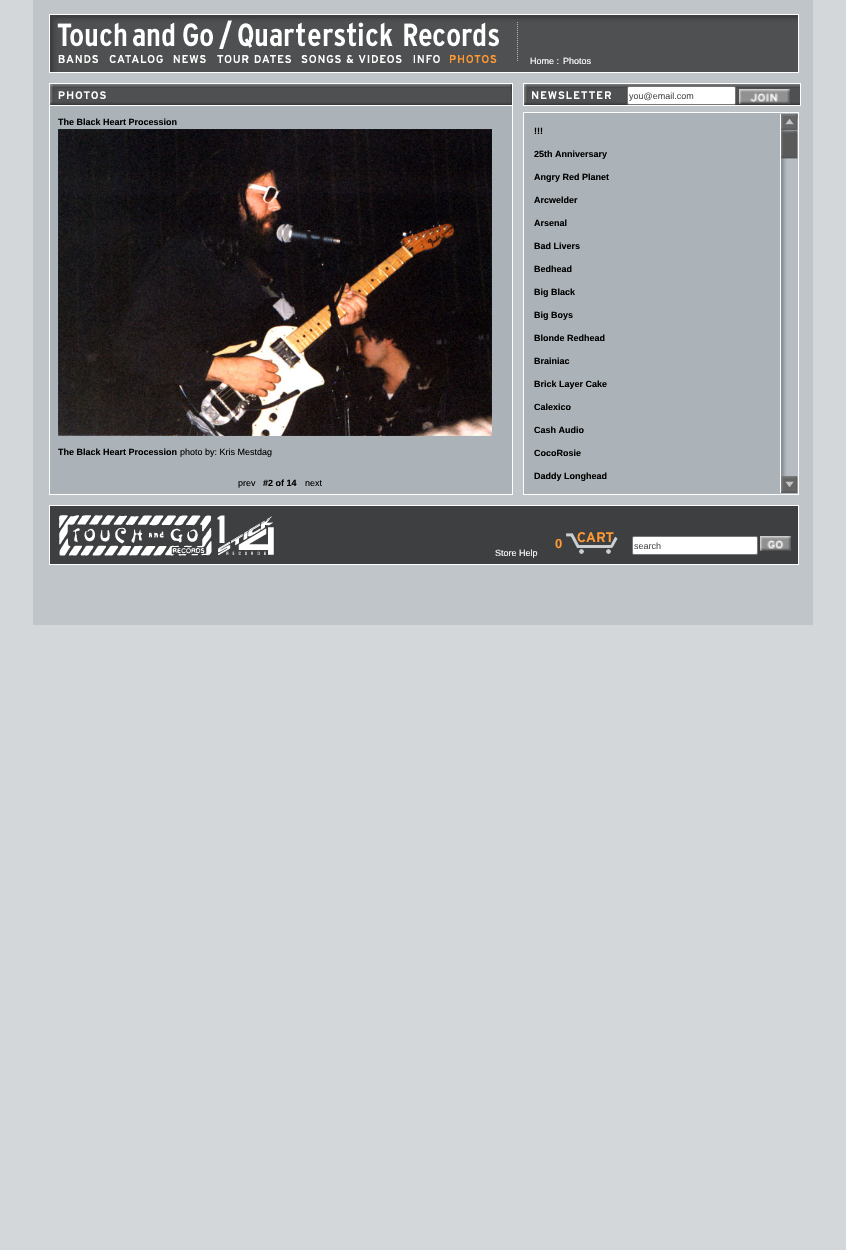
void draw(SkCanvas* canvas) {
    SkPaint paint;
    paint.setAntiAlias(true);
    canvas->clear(0xFFD3D7D9);
    paint.setColor(0xFFC0C5C9);
    canvas->drawRect(SkRect::MakeXYWH(33, 0, 780, 625), paint);
    paint.setColor(0xFF3D3F40);
    canvas->drawRect(SkRect::MakeXYWH(50, 15, 748, 57), paint);
    canvas->drawImageRect(SkImages::DeferredFromEncodedData(SkData::MakeFromFileName("img1.png")), SkRect::MakeXYWH(53, 18, 745, 54), SkSamplingOptions());
    paint.setStyle(SkPaint::kStroke_Style);
    paint.setStrokeWidth(1);
    paint.setColor(0xFFFFFFFF);
    canvas->drawRect(SkRect::MakeXYWH(49.5f, 14.5f, 749, 58), paint);
    canvas->drawImageRect(SkImages::DeferredFromEncodedData(SkData::MakeFromFileName("img2.png")), SkRect::MakeXYWH(57, 20, 442, 29), SkSamplingOptions());
    canvas->drawImageRect(SkImages::DeferredFromEncodedData(SkData::MakeFromFileName("img3.png")), SkRect::MakeXYWH(517, 22, 1, 39), SkSamplingOptions());
    canvas->drawImageRect(SkImages::DeferredFromEncodedData(SkData::MakeFromFileName("img4.png")), SkRect::MakeXYWH(58, 55, 40, 8), SkSamplingOptions());
    canvas->drawImageRect(SkImages::DeferredFromEncodedData(SkData::MakeFromFileName("img5.png")), SkRect::MakeXYWH(109, 55, 54, 8), SkSamplingOptions());
    canvas->drawImageRect(SkImages::DeferredFromEncodedData(SkData::MakeFromFileName("img6.png")), SkRect::MakeXYWH(173, 55, 33, 8), SkSamplingOptions());
    canvas->drawImageRect(SkImages::DeferredFromEncodedData(SkData::MakeFromFileName("img7.png")), SkRect::MakeXYWH(217, 55, 74, 8), SkSamplingOptions());
    canvas->drawImageRect(SkImages::DeferredFromEncodedData(SkData::MakeFromFileName("img8.png")), SkRect::MakeXYWH(301, 55, 101, 8), SkSamplingOptions());
    canvas->drawImageRect(SkImages::DeferredFromEncodedData(SkData::MakeFromFileName("img9.png")), SkRect::MakeXYWH(413, 55, 27, 8), SkSamplingOptions());
    canvas->drawImageRect(SkImages::DeferredFromEncodedData(SkData::MakeFromFileName("img10.png")), SkRect::MakeXYWH(450, 55, 47, 8), SkSamplingOptions());
    SkFont font1(fontMgr->matchFamilyStyle("Liberation Sans", SkFontStyle::Normal()), 9);
    font1.setSubpixel(true);
    paint.setStyle(SkPaint::kFill_Style);
    canvas->drawString("Home :", 530, 64, font1, paint);
    canvas->drawString("Photos", 563, 64, font1, paint);
    paint.setStyle(SkPaint::kStroke_Style);
    canvas->drawRect(SkRect::MakeXYWH(523.5f, 83.5f, 277, 22), paint);
    canvas->drawImageRect(SkImages::DeferredFromEncodedData(SkData::MakeFromFileName("img11.png")), SkRect::MakeXYWH(524, 84, 276, 21), SkSamplingOptions());
    paint.setStyle(SkPaint::kFill_Style);
    canvas->drawRoundRect(SkRect::MakeXYWH(627.5f, 86.5f, 108, 18), 1.5f, 1.5f, paint);
    paint.setStyle(SkPaint::kStroke_Style);
    paint.setColor(0xFF767676);
    canvas->drawRoundRect(SkRect::MakeXYWH(627.5f, 86.5f, 108, 18), 1.5f, 1.5f, paint);
    paint.setStyle(SkPaint::kFill_Style);
    paint.setColor(0xFF4E5051);
    canvas->drawString("you@email.com", 629, 99, font1, paint);
    canvas->drawImageRect(SkImages::DeferredFromEncodedData(SkData::MakeFromFileName("img12.png")), SkRect::MakeXYWH(739, 89, 51, 15), SkSamplingOptions());
    paint.setColor(0xFFACB3B8);
    canvas->drawRect(SkRect::MakeXYWH(50, 106, 462, 388), paint);
    paint.setStyle(SkPaint::kStroke_Style);
    paint.setColor(0xFFFFFFFF);
    canvas->drawRect(SkRect::MakeXYWH(49.5f, 83.5f, 463, 411), paint);
    paint.setStyle(SkPaint::kFill_Style);
    canvas->drawRect(SkRect::MakeXYWH(50, 105, 462, 1), paint);
    canvas->drawImageRect(SkImages::DeferredFromEncodedData(SkData::MakeFromFileName("img13.png")), SkRect::MakeXYWH(50, 84, 462, 21), SkSamplingOptions());
    SkFont font2(fontMgr->matchFamilyStyle("Liberation Sans", SkFontStyle::Bold()), 9);
    font2.setSubpixel(true);
    paint.setColor(0xFF000000);
    canvas->drawString("The Black Heart Procession", 58, 125, font2, paint);
    canvas->drawImageRect(SkImages::DeferredFromEncodedData(SkData::MakeFromFileName("img14.png")), SkRect::MakeXYWH(58, 129, 434, 307), SkSamplingOptions());
    canvas->drawString("The Black Heart Procession", 58, 455, font2, paint);
    canvas->drawString("photo by: Kris Mestdag", 180, 455, font1, paint);
    canvas->drawString("prev", 238, 486, font1, paint);
    canvas->drawString("#2 of 14", 263, 486, font2, paint);
    canvas->drawString("next", 305, 486, font1, paint);
    paint.setColor(0xFFACB3B8);
    canvas->drawRect(SkRect::MakeXYWH(523.5f, 112.5f, 275, 382), paint);
    paint.setStyle(SkPaint::kStroke_Style);
    paint.setColor(0xFFFFFFFF);
    canvas->drawRect(SkRect::MakeXYWH(523.5f, 112.5f, 275, 382), paint);
    paint.setStyle(SkPaint::kFill_Style);
    paint.setColor(0xFF000000);
    canvas->drawString("!!!", 534, 134, font2, paint);
    canvas->drawString("25th Anniversary", 534, 157, font2, paint);
    canvas->drawString("Angry Red Planet", 534, 180, font2, paint);
    canvas->drawString("Arcwelder", 534, 203, font2, paint);
    canvas->drawString("Arsenal", 534, 226, font2, paint);
    canvas->drawString("Bad Livers", 534, 249, font2, paint);
    canvas->drawString("Bedhead", 534, 272, font2, paint);
    canvas->drawString("Big Black", 534, 295, font2, paint);
    canvas->drawString("Big Boys", 534, 318, font2, paint);
    canvas->drawString("Blonde Redhead", 534, 341, font2, paint);
    canvas->drawString("Brainiac", 534, 364, font2, paint);
    canvas->drawString("Brick Layer Cake", 534, 387, font2, paint);
    canvas->drawString("Calexico", 534, 410, font2, paint);
    canvas->drawString("Cash Audio", 534, 433, font2, paint);
    canvas->drawString("CocoRosie", 534, 456, font2, paint);
    canvas->drawString("Daddy Longhead", 534, 479, font2, paint);
    paint.setColor(0xFFFFFFFF);
    canvas->drawRect(SkRect::MakeXYWH(780, 114, 1, 379), paint);
    canvas->drawImageRect(SkImages::DeferredFromEncodedData(SkData::MakeFromFileName("img15.png")), SkRect::MakeXYWH(781, 114, 17, 17), SkSamplingOptions());
    canvas->drawImageRect(SkImages::DeferredFromEncodedData(SkData::MakeFromFileName("img16.png")), SkRect::MakeXYWH(781, 131, 17, 28), SkSamplingOptions());
    canvas->drawImageRect(SkImages::DeferredFromEncodedData(SkData::MakeFromFileName("img17.png")), SkRect::MakeXYWH(781, 159, 17, 317), SkSamplingOptions());
    canvas->drawImageRect(SkImages::DeferredFromEncodedData(SkData::MakeFromFileName("img18.png")), SkRect::MakeXYWH(781, 476, 17, 17), SkSamplingOptions());
    paint.setColor(0xFF3D3F40);
    canvas->drawRect(SkRect::MakeXYWH(49.5f, 505.5f, 749, 59), paint);
    paint.setStyle(SkPaint::kStroke_Style);
    paint.setColor(0xFFFFFFFF);
    canvas->drawRect(SkRect::MakeXYWH(49.5f, 505.5f, 749, 59), paint);
    canvas->drawImageRect(SkImages::DeferredFromEncodedData(SkData::MakeFromFileName("img19.png")), SkRect::MakeXYWH(59, 515, 215, 41), SkSamplingOptions());
    canvas->drawImageRect(SkImages::DeferredFromEncodedData(SkData::MakeFromFileName("img20.png")), SkRect::MakeXYWH(566, 532, 52, 22), SkSamplingOptions());
    SkFont font3(fontMgr->matchFamilyStyle("Liberation Sans", SkFontStyle::Bold()), 13);
    font3.setSubpixel(true);
    paint.setStyle(SkPaint::kFill_Style);
    paint.setColor(0xFFFF9933);
    canvas->drawString("0", 555, 548, font3, paint);
    paint.setColor(0xFFFFFFFF);
    canvas->drawRoundRect(SkRect::MakeXYWH(632.5f, 536.5f, 125, 18), 1.5f, 1.5f, paint);
    paint.setStyle(SkPaint::kStroke_Style);
    paint.setColor(0xFF767676);
    canvas->drawRoundRect(SkRect::MakeXYWH(632.5f, 536.5f, 125, 18), 1.5f, 1.5f, paint);
    paint.setStyle(SkPaint::kFill_Style);
    paint.setColor(0xFF4E5051);
    canvas->drawString("search", 634, 549, font1, paint);
    canvas->drawImageRect(SkImages::DeferredFromEncodedData(SkData::MakeFromFileName("img21.png")), SkRect::MakeXYWH(760, 536, 31, 15), SkSamplingOptions());
    paint.setColor(0xFFFFFFFF);
    canvas->drawString("Store Help", 495, 556, font1, paint);
}
